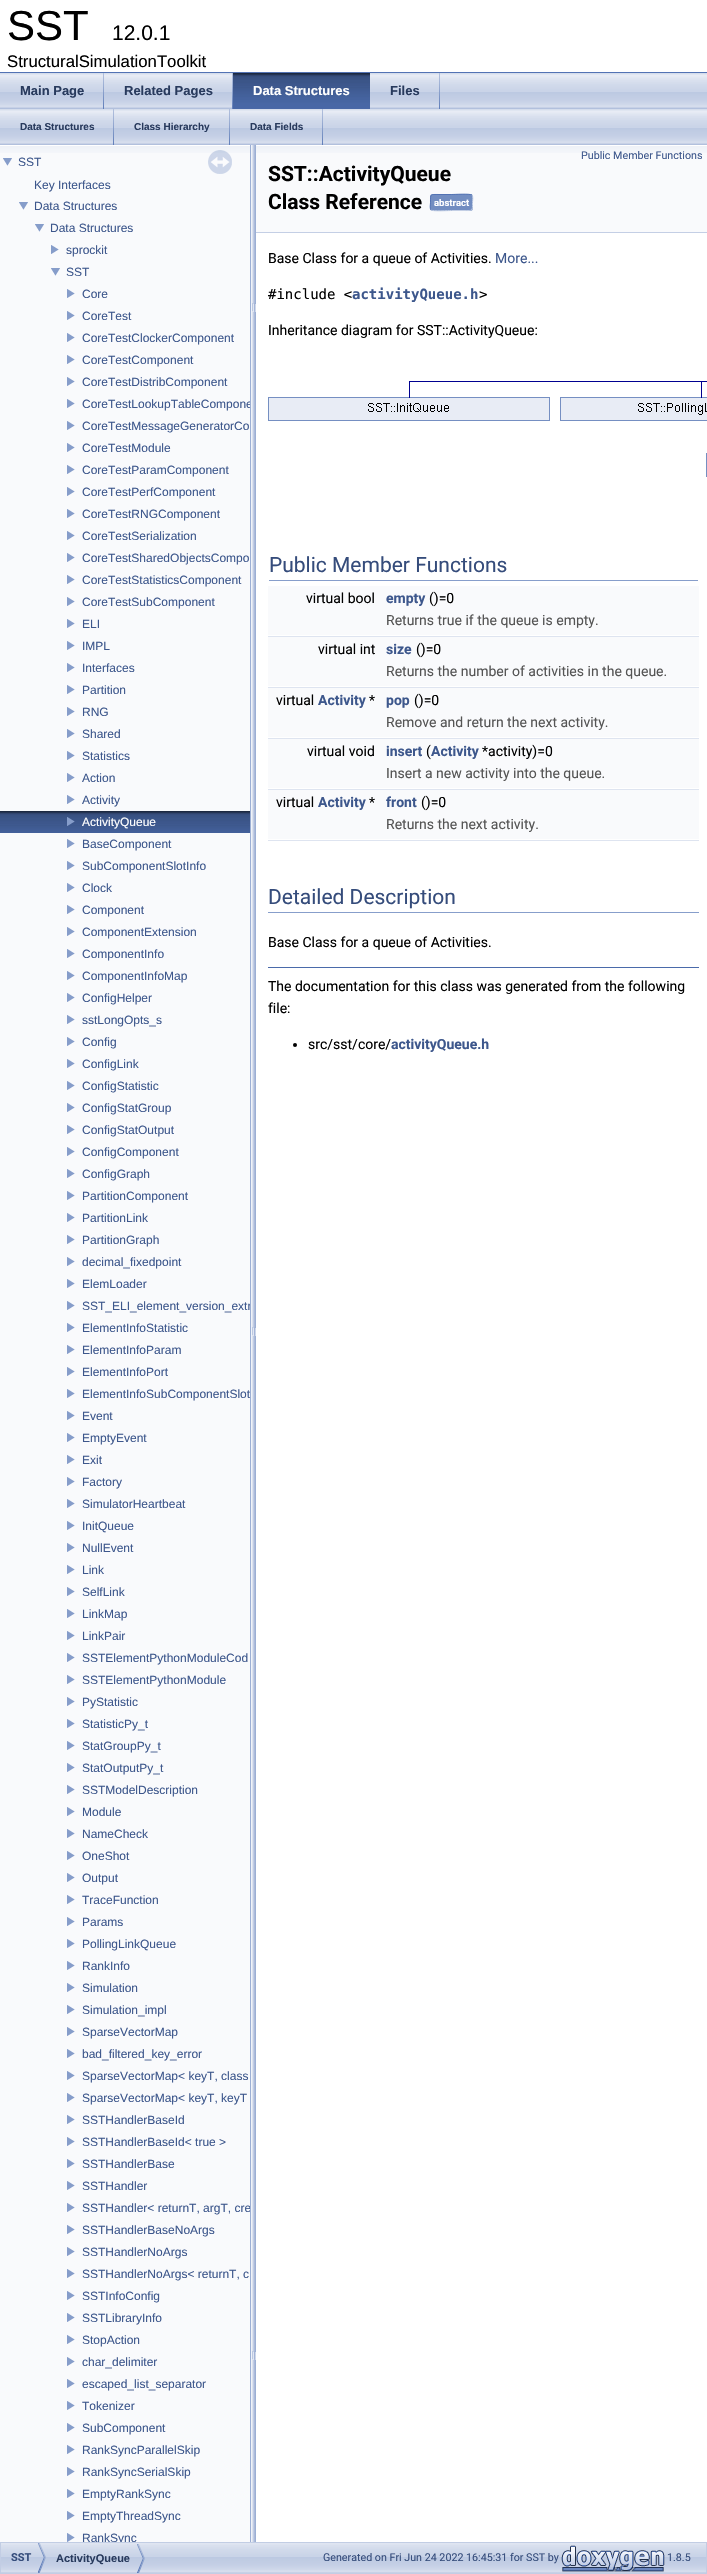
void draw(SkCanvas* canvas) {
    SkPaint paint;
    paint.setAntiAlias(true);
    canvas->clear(0xFFFFFFFF);
    paint.setColor(0xFF5373B4);
    canvas->drawRect(SkRect::MakeXYWH(0, 72, 707, 1), paint);
    SkFont font1(fontMgr->matchFamilyStyle("Liberation Sans", SkFontStyle::Normal()), 42);
    font1.setSubpixel(true);
    paint.setColor(0xFF000000);
    canvas->drawString("SST", 7, 40, font1, paint);
    SkFont font2(fontMgr->matchFamilyStyle("Liberation Sans", SkFontStyle::Normal()), 21);
    font2.setSubpixel(true);
    canvas->drawString("12.0.1", 112, 40, font2, paint);
    SkFont font3(fontMgr->matchFamilyStyle("Liberation Sans", SkFontStyle::Normal()), 16.75f);
    font3.setSubpixel(true);
    canvas->drawString("StructuralSimulationToolkit", 7, 67, font3, paint);
    canvas->drawImageRect(SkImages::DeferredFromEncodedData(SkData::MakeFromFileName("img1.png")), SkRect::MakeXYWH(0, 73, 707, 36), SkSamplingOptions());
    canvas->drawImageRect(SkImages::DeferredFromEncodedData(SkData::MakeFromFileName("img2.png")), SkRect::MakeXYWH(103, 73, 1, 36), SkSamplingOptions());
    SkFont font4(fontMgr->matchFamilyStyle("Liberation Sans", SkFontStyle::Bold()), 13);
    font4.setSubpixel(true);
    paint.setColor(0xFF283A5D);
    canvas->drawString("Main Page", 20, 95, font4, paint);
    canvas->drawImageRect(SkImages::DeferredFromEncodedData(SkData::MakeFromFileName("img2.png")), SkRect::MakeXYWH(232, 73, 1, 36), SkSamplingOptions());
    canvas->drawString("Related Pages", 124, 95, font4, paint);
    canvas->drawImageRect(SkImages::DeferredFromEncodedData(SkData::MakeFromFileName("img3.png")), SkRect::MakeXYWH(233, 73, 137, 36), SkSamplingOptions());
    paint.setColor(0xFFFFFFFF);
    canvas->drawString("Data Structures", 253, 95, font4, paint);
    canvas->drawImageRect(SkImages::DeferredFromEncodedData(SkData::MakeFromFileName("img2.png")), SkRect::MakeXYWH(439, 73, 1, 36), SkSamplingOptions());
    paint.setColor(0xFF283A5D);
    canvas->drawString("Files", 390, 95, font4, paint);
    canvas->drawImageRect(SkImages::DeferredFromEncodedData(SkData::MakeFromFileName("img1.png")), SkRect::MakeXYWH(0, 109, 707, 36), SkSamplingOptions());
    canvas->drawImageRect(SkImages::DeferredFromEncodedData(SkData::MakeFromFileName("img2.png")), SkRect::MakeXYWH(113, 109, 1, 36), SkSamplingOptions());
    SkFont font5(fontMgr->matchFamilyStyle("Liberation Sans", SkFontStyle::Bold()), 10);
    font5.setSubpixel(true);
    canvas->drawString("Data Structures", 20, 130, font5, paint);
    canvas->drawImageRect(SkImages::DeferredFromEncodedData(SkData::MakeFromFileName("img2.png")), SkRect::MakeXYWH(229, 109, 1, 36), SkSamplingOptions());
    canvas->drawString("Class Hierarchy", 134, 130, font5, paint);
    canvas->drawImageRect(SkImages::DeferredFromEncodedData(SkData::MakeFromFileName("img2.png")), SkRect::MakeXYWH(322, 109, 1, 36), SkSamplingOptions());
    canvas->drawString("Data Fields", 250, 130, font5, paint);
    paint.setColor(0xFFF9FAFC);
    canvas->drawRect(SkRect::MakeXYWH(0, 153, 250, 2389), paint);
    canvas->drawImageRect(SkImages::DeferredFromEncodedData(SkData::MakeFromFileName("img4.png")), SkRect::MakeXYWH(0, 145, 250, 8), SkSamplingOptions());
    canvas->drawImageRect(SkImages::DeferredFromEncodedData(SkData::MakeFromFileName("img5.png")), SkRect::MakeXYWH(208, 150, 24, 24), SkSamplingOptions());
    canvas->drawImageRect(SkImages::DeferredFromEncodedData(SkData::MakeFromFileName("img6.png")), SkRect::MakeXYWH(3, 158, 9, 8), SkSamplingOptions());
    SkFont font6(fontMgr->matchFamilyStyle("Liberation Sans", SkFontStyle::Normal()), 12);
    font6.setSubpixel(true);
    paint.setColor(0xFF3D578C);
    canvas->drawString("SST", 18, 166, font6, paint);
    canvas->drawString("Key Interfaces", 34, 189, font6, paint);
    canvas->drawImageRect(SkImages::DeferredFromEncodedData(SkData::MakeFromFileName("img6.png")), SkRect::MakeXYWH(19, 202, 9, 8), SkSamplingOptions());
    canvas->drawString("Data Structures", 34, 210, font6, paint);
    canvas->drawImageRect(SkImages::DeferredFromEncodedData(SkData::MakeFromFileName("img6.png")), SkRect::MakeXYWH(35, 224, 9, 8), SkSamplingOptions());
    canvas->drawString("Data Structures", 50, 232, font6, paint);
    canvas->drawImageRect(SkImages::DeferredFromEncodedData(SkData::MakeFromFileName("img7.png")), SkRect::MakeXYWH(51, 245, 8, 9), SkSamplingOptions());
    canvas->drawString("sprockit", 66, 254, font6, paint);
    canvas->drawImageRect(SkImages::DeferredFromEncodedData(SkData::MakeFromFileName("img6.png")), SkRect::MakeXYWH(51, 268, 9, 8), SkSamplingOptions());
    canvas->drawString("SST", 66, 276, font6, paint);
    canvas->drawImageRect(SkImages::DeferredFromEncodedData(SkData::MakeFromFileName("img7.png")), SkRect::MakeXYWH(67, 289, 8, 9), SkSamplingOptions());
    canvas->drawString("Core", 82, 298, font6, paint);
    canvas->drawImageRect(SkImages::DeferredFromEncodedData(SkData::MakeFromFileName("img7.png")), SkRect::MakeXYWH(67, 311, 8, 9), SkSamplingOptions());
    canvas->drawString("CoreTest", 82, 320, font6, paint);
    canvas->drawImageRect(SkImages::DeferredFromEncodedData(SkData::MakeFromFileName("img7.png")), SkRect::MakeXYWH(67, 333, 8, 9), SkSamplingOptions());
    canvas->drawString("CoreTestClockerComponent", 82, 342, font6, paint);
    canvas->drawImageRect(SkImages::DeferredFromEncodedData(SkData::MakeFromFileName("img7.png")), SkRect::MakeXYWH(67, 355, 8, 9), SkSamplingOptions());
    canvas->drawString("CoreTestComponent", 82, 364, font6, paint);
    canvas->drawImageRect(SkImages::DeferredFromEncodedData(SkData::MakeFromFileName("img7.png")), SkRect::MakeXYWH(67, 377, 8, 9), SkSamplingOptions());
    canvas->drawString("CoreTestDistribComponent", 82, 386, font6, paint);
    canvas->drawImageRect(SkImages::DeferredFromEncodedData(SkData::MakeFromFileName("img7.png")), SkRect::MakeXYWH(67, 399, 8, 9), SkSamplingOptions());
    canvas->drawString("CoreTestLookupTableCompone", 82, 408, font6, paint);
    canvas->drawImageRect(SkImages::DeferredFromEncodedData(SkData::MakeFromFileName("img7.png")), SkRect::MakeXYWH(67, 421, 8, 9), SkSamplingOptions());
    canvas->drawString("CoreTestMessageGeneratorCo", 82, 430, font6, paint);
    canvas->drawImageRect(SkImages::DeferredFromEncodedData(SkData::MakeFromFileName("img7.png")), SkRect::MakeXYWH(67, 443, 8, 9), SkSamplingOptions());
    canvas->drawString("CoreTestModule", 82, 452, font6, paint);
    canvas->drawImageRect(SkImages::DeferredFromEncodedData(SkData::MakeFromFileName("img7.png")), SkRect::MakeXYWH(67, 465, 8, 9), SkSamplingOptions());
    canvas->drawString("CoreTestParamComponent", 82, 474, font6, paint);
    canvas->drawImageRect(SkImages::DeferredFromEncodedData(SkData::MakeFromFileName("img7.png")), SkRect::MakeXYWH(67, 487, 8, 9), SkSamplingOptions());
    canvas->drawString("CoreTestPerfComponent", 82, 496, font6, paint);
    canvas->drawImageRect(SkImages::DeferredFromEncodedData(SkData::MakeFromFileName("img7.png")), SkRect::MakeXYWH(67, 509, 8, 9), SkSamplingOptions());
    canvas->drawString("CoreTestRNGComponent", 82, 518, font6, paint);
    canvas->drawImageRect(SkImages::DeferredFromEncodedData(SkData::MakeFromFileName("img7.png")), SkRect::MakeXYWH(67, 531, 8, 9), SkSamplingOptions());
    canvas->drawString("CoreTestSerialization", 82, 540, font6, paint);
    canvas->drawImageRect(SkImages::DeferredFromEncodedData(SkData::MakeFromFileName("img7.png")), SkRect::MakeXYWH(67, 553, 8, 9), SkSamplingOptions());
    canvas->drawString("CoreTestSharedObjectsCompo", 82, 562, font6, paint);
    canvas->drawImageRect(SkImages::DeferredFromEncodedData(SkData::MakeFromFileName("img7.png")), SkRect::MakeXYWH(67, 575, 8, 9), SkSamplingOptions());
    canvas->drawString("CoreTestStatisticsComponent", 82, 584, font6, paint);
    canvas->drawImageRect(SkImages::DeferredFromEncodedData(SkData::MakeFromFileName("img7.png")), SkRect::MakeXYWH(67, 597, 8, 9), SkSamplingOptions());
    canvas->drawString("CoreTestSubComponent", 82, 606, font6, paint);
    canvas->drawImageRect(SkImages::DeferredFromEncodedData(SkData::MakeFromFileName("img7.png")), SkRect::MakeXYWH(67, 619, 8, 9), SkSamplingOptions());
    canvas->drawString("ELI", 82, 628, font6, paint);
    canvas->drawImageRect(SkImages::DeferredFromEncodedData(SkData::MakeFromFileName("img7.png")), SkRect::MakeXYWH(67, 641, 8, 9), SkSamplingOptions());
    canvas->drawString("IMPL", 82, 650, font6, paint);
    canvas->drawImageRect(SkImages::DeferredFromEncodedData(SkData::MakeFromFileName("img7.png")), SkRect::MakeXYWH(67, 663, 8, 9), SkSamplingOptions());
    canvas->drawString("Interfaces", 82, 672, font6, paint);
    canvas->drawImageRect(SkImages::DeferredFromEncodedData(SkData::MakeFromFileName("img7.png")), SkRect::MakeXYWH(67, 685, 8, 9), SkSamplingOptions());
    canvas->drawString("Partition", 82, 694, font6, paint);
    canvas->drawImageRect(SkImages::DeferredFromEncodedData(SkData::MakeFromFileName("img7.png")), SkRect::MakeXYWH(67, 707, 8, 9), SkSamplingOptions());
    canvas->drawString("RNG", 82, 716, font6, paint);
    canvas->drawImageRect(SkImages::DeferredFromEncodedData(SkData::MakeFromFileName("img7.png")), SkRect::MakeXYWH(67, 729, 8, 9), SkSamplingOptions());
    canvas->drawString("Shared", 82, 738, font6, paint);
    canvas->drawImageRect(SkImages::DeferredFromEncodedData(SkData::MakeFromFileName("img7.png")), SkRect::MakeXYWH(67, 751, 8, 9), SkSamplingOptions());
    canvas->drawString("Statistics", 82, 760, font6, paint);
    canvas->drawImageRect(SkImages::DeferredFromEncodedData(SkData::MakeFromFileName("img7.png")), SkRect::MakeXYWH(67, 773, 8, 9), SkSamplingOptions());
    canvas->drawString("Action", 82, 782, font6, paint);
    canvas->drawImageRect(SkImages::DeferredFromEncodedData(SkData::MakeFromFileName("img7.png")), SkRect::MakeXYWH(67, 795, 8, 9), SkSamplingOptions());
    canvas->drawString("Activity", 82, 804, font6, paint);
    canvas->drawImageRect(SkImages::DeferredFromEncodedData(SkData::MakeFromFileName("img8.png")), SkRect::MakeXYWH(0, 811, 250, 22), SkSamplingOptions());
    canvas->drawImageRect(SkImages::DeferredFromEncodedData(SkData::MakeFromFileName("img9.png")), SkRect::MakeXYWH(67, 817, 8, 9), SkSamplingOptions());
    paint.setColor(0xFFFFFFFF);
    canvas->drawString("ActivityQueue", 82, 826, font6, paint);
    canvas->drawImageRect(SkImages::DeferredFromEncodedData(SkData::MakeFromFileName("img7.png")), SkRect::MakeXYWH(67, 839, 8, 9), SkSamplingOptions());
    paint.setColor(0xFF3D578C);
    canvas->drawString("BaseComponent", 82, 848, font6, paint);
    canvas->drawImageRect(SkImages::DeferredFromEncodedData(SkData::MakeFromFileName("img7.png")), SkRect::MakeXYWH(67, 861, 8, 9), SkSamplingOptions());
    canvas->drawString("SubComponentSlotInfo", 82, 870, font6, paint);
    canvas->drawImageRect(SkImages::DeferredFromEncodedData(SkData::MakeFromFileName("img7.png")), SkRect::MakeXYWH(67, 883, 8, 9), SkSamplingOptions());
    canvas->drawString("Clock", 82, 892, font6, paint);
    canvas->drawImageRect(SkImages::DeferredFromEncodedData(SkData::MakeFromFileName("img7.png")), SkRect::MakeXYWH(67, 905, 8, 9), SkSamplingOptions());
    canvas->drawString("Component", 82, 914, font6, paint);
    canvas->drawImageRect(SkImages::DeferredFromEncodedData(SkData::MakeFromFileName("img7.png")), SkRect::MakeXYWH(67, 927, 8, 9), SkSamplingOptions());
    canvas->drawString("ComponentExtension", 82, 936, font6, paint);
    canvas->drawImageRect(SkImages::DeferredFromEncodedData(SkData::MakeFromFileName("img7.png")), SkRect::MakeXYWH(67, 949, 8, 9), SkSamplingOptions());
    canvas->drawString("ComponentInfo", 82, 958, font6, paint);
    canvas->drawImageRect(SkImages::DeferredFromEncodedData(SkData::MakeFromFileName("img7.png")), SkRect::MakeXYWH(67, 971, 8, 9), SkSamplingOptions());
    canvas->drawString("ComponentInfoMap", 82, 980, font6, paint);
    canvas->drawImageRect(SkImages::DeferredFromEncodedData(SkData::MakeFromFileName("img7.png")), SkRect::MakeXYWH(67, 993, 8, 9), SkSamplingOptions());
    canvas->drawString("ConfigHelper", 82, 1002, font6, paint);
    canvas->drawImageRect(SkImages::DeferredFromEncodedData(SkData::MakeFromFileName("img7.png")), SkRect::MakeXYWH(67, 1015, 8, 9), SkSamplingOptions());
    canvas->drawString("sstLongOpts_s", 82, 1024, font6, paint);
    canvas->drawImageRect(SkImages::DeferredFromEncodedData(SkData::MakeFromFileName("img7.png")), SkRect::MakeXYWH(67, 1037, 8, 9), SkSamplingOptions());
    canvas->drawString("Config", 82, 1046, font6, paint);
    canvas->drawImageRect(SkImages::DeferredFromEncodedData(SkData::MakeFromFileName("img7.png")), SkRect::MakeXYWH(67, 1059, 8, 9), SkSamplingOptions());
    canvas->drawString("ConfigLink", 82, 1068, font6, paint);
    canvas->drawImageRect(SkImages::DeferredFromEncodedData(SkData::MakeFromFileName("img7.png")), SkRect::MakeXYWH(67, 1081, 8, 9), SkSamplingOptions());
    canvas->drawString("ConfigStatistic", 82, 1090, font6, paint);
    canvas->drawImageRect(SkImages::DeferredFromEncodedData(SkData::MakeFromFileName("img7.png")), SkRect::MakeXYWH(67, 1103, 8, 9), SkSamplingOptions());
    canvas->drawString("ConfigStatGroup", 82, 1112, font6, paint);
    canvas->drawImageRect(SkImages::DeferredFromEncodedData(SkData::MakeFromFileName("img7.png")), SkRect::MakeXYWH(67, 1125, 8, 9), SkSamplingOptions());
    canvas->drawString("ConfigStatOutput", 82, 1134, font6, paint);
    canvas->drawImageRect(SkImages::DeferredFromEncodedData(SkData::MakeFromFileName("img7.png")), SkRect::MakeXYWH(67, 1147, 8, 9), SkSamplingOptions());
    canvas->drawString("ConfigComponent", 82, 1156, font6, paint);
    canvas->drawImageRect(SkImages::DeferredFromEncodedData(SkData::MakeFromFileName("img7.png")), SkRect::MakeXYWH(67, 1169, 8, 9), SkSamplingOptions());
    canvas->drawString("ConfigGraph", 82, 1178, font6, paint);
    canvas->drawImageRect(SkImages::DeferredFromEncodedData(SkData::MakeFromFileName("img7.png")), SkRect::MakeXYWH(67, 1191, 8, 9), SkSamplingOptions());
    canvas->drawString("PartitionComponent", 82, 1200, font6, paint);
    canvas->drawImageRect(SkImages::DeferredFromEncodedData(SkData::MakeFromFileName("img7.png")), SkRect::MakeXYWH(67, 1213, 8, 9), SkSamplingOptions());
    canvas->drawString("PartitionLink", 82, 1222, font6, paint);
    canvas->drawImageRect(SkImages::DeferredFromEncodedData(SkData::MakeFromFileName("img7.png")), SkRect::MakeXYWH(67, 1235, 8, 9), SkSamplingOptions());
    canvas->drawString("PartitionGraph", 82, 1244, font6, paint);
    canvas->drawImageRect(SkImages::DeferredFromEncodedData(SkData::MakeFromFileName("img7.png")), SkRect::MakeXYWH(67, 1257, 8, 9), SkSamplingOptions());
    canvas->drawString("decimal_fixedpoint", 82, 1266, font6, paint);
    canvas->drawImageRect(SkImages::DeferredFromEncodedData(SkData::MakeFromFileName("img7.png")), SkRect::MakeXYWH(67, 1279, 8, 9), SkSamplingOptions());
    canvas->drawString("ElemLoader", 82, 1288, font6, paint);
    canvas->drawImageRect(SkImages::DeferredFromEncodedData(SkData::MakeFromFileName("img7.png")), SkRect::MakeXYWH(67, 1301, 8, 9), SkSamplingOptions());
    canvas->drawString("SST_ELI_element_version_extr", 82, 1310, font6, paint);
    canvas->drawImageRect(SkImages::DeferredFromEncodedData(SkData::MakeFromFileName("img7.png")), SkRect::MakeXYWH(67, 1323, 8, 9), SkSamplingOptions());
    canvas->drawString("ElementInfoStatistic", 82, 1332, font6, paint);
    canvas->drawImageRect(SkImages::DeferredFromEncodedData(SkData::MakeFromFileName("img7.png")), SkRect::MakeXYWH(67, 1345, 8, 9), SkSamplingOptions());
    canvas->drawString("ElementInfoParam", 82, 1354, font6, paint);
    canvas->drawImageRect(SkImages::DeferredFromEncodedData(SkData::MakeFromFileName("img7.png")), SkRect::MakeXYWH(67, 1367, 8, 9), SkSamplingOptions());
    canvas->drawString("ElementInfoPort", 82, 1376, font6, paint);
    canvas->drawImageRect(SkImages::DeferredFromEncodedData(SkData::MakeFromFileName("img7.png")), SkRect::MakeXYWH(67, 1389, 8, 9), SkSamplingOptions());
    canvas->drawString("ElementInfoSubComponentSlot", 82, 1398, font6, paint);
    canvas->drawImageRect(SkImages::DeferredFromEncodedData(SkData::MakeFromFileName("img7.png")), SkRect::MakeXYWH(67, 1411, 8, 9), SkSamplingOptions());
    canvas->drawString("Event", 82, 1420, font6, paint);
    canvas->drawImageRect(SkImages::DeferredFromEncodedData(SkData::MakeFromFileName("img7.png")), SkRect::MakeXYWH(67, 1433, 8, 9), SkSamplingOptions());
    canvas->drawString("EmptyEvent", 82, 1442, font6, paint);
    canvas->drawImageRect(SkImages::DeferredFromEncodedData(SkData::MakeFromFileName("img7.png")), SkRect::MakeXYWH(67, 1455, 8, 9), SkSamplingOptions());
    canvas->drawString("Exit", 82, 1464, font6, paint);
    canvas->drawImageRect(SkImages::DeferredFromEncodedData(SkData::MakeFromFileName("img7.png")), SkRect::MakeXYWH(67, 1477, 8, 9), SkSamplingOptions());
    canvas->drawString("Factory", 82, 1486, font6, paint);
    canvas->drawImageRect(SkImages::DeferredFromEncodedData(SkData::MakeFromFileName("img7.png")), SkRect::MakeXYWH(67, 1499, 8, 9), SkSamplingOptions());
    canvas->drawString("SimulatorHeartbeat", 82, 1508, font6, paint);
    canvas->drawImageRect(SkImages::DeferredFromEncodedData(SkData::MakeFromFileName("img7.png")), SkRect::MakeXYWH(67, 1521, 8, 9), SkSamplingOptions());
    canvas->drawString("InitQueue", 82, 1530, font6, paint);
    canvas->drawImageRect(SkImages::DeferredFromEncodedData(SkData::MakeFromFileName("img7.png")), SkRect::MakeXYWH(67, 1543, 8, 9), SkSamplingOptions());
    canvas->drawString("NullEvent", 82, 1552, font6, paint);
    canvas->drawImageRect(SkImages::DeferredFromEncodedData(SkData::MakeFromFileName("img7.png")), SkRect::MakeXYWH(67, 1565, 8, 9), SkSamplingOptions());
    canvas->drawString("Link", 82, 1574, font6, paint);
    canvas->drawImageRect(SkImages::DeferredFromEncodedData(SkData::MakeFromFileName("img7.png")), SkRect::MakeXYWH(67, 1587, 8, 9), SkSamplingOptions());
    canvas->drawString("SelfLink", 82, 1596, font6, paint);
    canvas->drawImageRect(SkImages::DeferredFromEncodedData(SkData::MakeFromFileName("img7.png")), SkRect::MakeXYWH(67, 1609, 8, 9), SkSamplingOptions());
    canvas->drawString("LinkMap", 82, 1618, font6, paint);
    canvas->drawImageRect(SkImages::DeferredFromEncodedData(SkData::MakeFromFileName("img7.png")), SkRect::MakeXYWH(67, 1631, 8, 9), SkSamplingOptions());
    canvas->drawString("LinkPair", 82, 1640, font6, paint);
    canvas->drawImageRect(SkImages::DeferredFromEncodedData(SkData::MakeFromFileName("img7.png")), SkRect::MakeXYWH(67, 1653, 8, 9), SkSamplingOptions());
    canvas->drawString("SSTElementPythonModuleCod", 82, 1662, font6, paint);
    canvas->drawImageRect(SkImages::DeferredFromEncodedData(SkData::MakeFromFileName("img7.png")), SkRect::MakeXYWH(67, 1675, 8, 9), SkSamplingOptions());
    canvas->drawString("SSTElementPythonModule", 82, 1684, font6, paint);
    canvas->drawImageRect(SkImages::DeferredFromEncodedData(SkData::MakeFromFileName("img7.png")), SkRect::MakeXYWH(67, 1697, 8, 9), SkSamplingOptions());
    canvas->drawString("PyStatistic", 82, 1706, font6, paint);
    canvas->drawImageRect(SkImages::DeferredFromEncodedData(SkData::MakeFromFileName("img7.png")), SkRect::MakeXYWH(67, 1719, 8, 9), SkSamplingOptions());
    canvas->drawString("StatisticPy_t", 82, 1728, font6, paint);
    canvas->drawImageRect(SkImages::DeferredFromEncodedData(SkData::MakeFromFileName("img7.png")), SkRect::MakeXYWH(67, 1741, 8, 9), SkSamplingOptions());
    canvas->drawString("StatGroupPy_t", 82, 1750, font6, paint);
    canvas->drawImageRect(SkImages::DeferredFromEncodedData(SkData::MakeFromFileName("img7.png")), SkRect::MakeXYWH(67, 1763, 8, 9), SkSamplingOptions());
    canvas->drawString("StatOutputPy_t", 82, 1772, font6, paint);
    canvas->drawImageRect(SkImages::DeferredFromEncodedData(SkData::MakeFromFileName("img7.png")), SkRect::MakeXYWH(67, 1785, 8, 9), SkSamplingOptions());
    canvas->drawString("SSTModelDescription", 82, 1794, font6, paint);
    canvas->drawImageRect(SkImages::DeferredFromEncodedData(SkData::MakeFromFileName("img7.png")), SkRect::MakeXYWH(67, 1807, 8, 9), SkSamplingOptions());
    canvas->drawString("Module", 82, 1816, font6, paint);
    canvas->drawImageRect(SkImages::DeferredFromEncodedData(SkData::MakeFromFileName("img7.png")), SkRect::MakeXYWH(67, 1829, 8, 9), SkSamplingOptions());
    canvas->drawString("NameCheck", 82, 1838, font6, paint);
    canvas->drawImageRect(SkImages::DeferredFromEncodedData(SkData::MakeFromFileName("img7.png")), SkRect::MakeXYWH(67, 1851, 8, 9), SkSamplingOptions());
    canvas->drawString("OneShot", 82, 1860, font6, paint);
    canvas->drawImageRect(SkImages::DeferredFromEncodedData(SkData::MakeFromFileName("img7.png")), SkRect::MakeXYWH(67, 1873, 8, 9), SkSamplingOptions());
    canvas->drawString("Output", 82, 1882, font6, paint);
    canvas->drawImageRect(SkImages::DeferredFromEncodedData(SkData::MakeFromFileName("img7.png")), SkRect::MakeXYWH(67, 1895, 8, 9), SkSamplingOptions());
    canvas->drawString("TraceFunction", 82, 1904, font6, paint);
    canvas->drawImageRect(SkImages::DeferredFromEncodedData(SkData::MakeFromFileName("img7.png")), SkRect::MakeXYWH(67, 1917, 8, 9), SkSamplingOptions());
    canvas->drawString("Params", 82, 1926, font6, paint);
    canvas->drawImageRect(SkImages::DeferredFromEncodedData(SkData::MakeFromFileName("img7.png")), SkRect::MakeXYWH(67, 1939, 8, 9), SkSamplingOptions());
    canvas->drawString("PollingLinkQueue", 82, 1948, font6, paint);
    canvas->drawImageRect(SkImages::DeferredFromEncodedData(SkData::MakeFromFileName("img7.png")), SkRect::MakeXYWH(67, 1961, 8, 9), SkSamplingOptions());
    canvas->drawString("RankInfo", 82, 1970, font6, paint);
    canvas->drawImageRect(SkImages::DeferredFromEncodedData(SkData::MakeFromFileName("img7.png")), SkRect::MakeXYWH(67, 1983, 8, 9), SkSamplingOptions());
    canvas->drawString("Simulation", 82, 1992, font6, paint);
    canvas->drawImageRect(SkImages::DeferredFromEncodedData(SkData::MakeFromFileName("img7.png")), SkRect::MakeXYWH(67, 2005, 8, 9), SkSamplingOptions());
    canvas->drawString("Simulation_impl", 82, 2014, font6, paint);
    canvas->drawImageRect(SkImages::DeferredFromEncodedData(SkData::MakeFromFileName("img7.png")), SkRect::MakeXYWH(67, 2027, 8, 9), SkSamplingOptions());
    canvas->drawString("SparseVectorMap", 82, 2036, font6, paint);
    canvas->drawImageRect(SkImages::DeferredFromEncodedData(SkData::MakeFromFileName("img7.png")), SkRect::MakeXYWH(67, 2049, 8, 9), SkSamplingOptions());
    canvas->drawString("bad_filtered_key_error", 82, 2058, font6, paint);
    canvas->drawImageRect(SkImages::DeferredFromEncodedData(SkData::MakeFromFileName("img7.png")), SkRect::MakeXYWH(67, 2071, 8, 9), SkSamplingOptions());
    canvas->drawString("SparseVectorMap< keyT, class", 82, 2080, font6, paint);
    canvas->drawImageRect(SkImages::DeferredFromEncodedData(SkData::MakeFromFileName("img7.png")), SkRect::MakeXYWH(67, 2093, 8, 9), SkSamplingOptions());
    canvas->drawString("SparseVectorMap< keyT, keyT", 82, 2102, font6, paint);
    canvas->drawImageRect(SkImages::DeferredFromEncodedData(SkData::MakeFromFileName("img7.png")), SkRect::MakeXYWH(67, 2115, 8, 9), SkSamplingOptions());
    canvas->drawString("SSTHandlerBaseId", 82, 2124, font6, paint);
    canvas->drawImageRect(SkImages::DeferredFromEncodedData(SkData::MakeFromFileName("img7.png")), SkRect::MakeXYWH(67, 2137, 8, 9), SkSamplingOptions());
    canvas->drawString("SSTHandlerBaseId< true >", 82, 2146, font6, paint);
    canvas->drawImageRect(SkImages::DeferredFromEncodedData(SkData::MakeFromFileName("img7.png")), SkRect::MakeXYWH(67, 2159, 8, 9), SkSamplingOptions());
    canvas->drawString("SSTHandlerBase", 82, 2168, font6, paint);
    canvas->drawImageRect(SkImages::DeferredFromEncodedData(SkData::MakeFromFileName("img7.png")), SkRect::MakeXYWH(67, 2181, 8, 9), SkSamplingOptions());
    canvas->drawString("SSTHandler", 82, 2190, font6, paint);
    canvas->drawImageRect(SkImages::DeferredFromEncodedData(SkData::MakeFromFileName("img7.png")), SkRect::MakeXYWH(67, 2203, 8, 9), SkSamplingOptions());
    canvas->drawString("SSTHandler< returnT, argT, cre", 82, 2212, font6, paint);
    canvas->drawImageRect(SkImages::DeferredFromEncodedData(SkData::MakeFromFileName("img7.png")), SkRect::MakeXYWH(67, 2225, 8, 9), SkSamplingOptions());
    canvas->drawString("SSTHandlerBaseNoArgs", 82, 2234, font6, paint);
    canvas->drawImageRect(SkImages::DeferredFromEncodedData(SkData::MakeFromFileName("img7.png")), SkRect::MakeXYWH(67, 2247, 8, 9), SkSamplingOptions());
    canvas->drawString("SSTHandlerNoArgs", 82, 2256, font6, paint);
    canvas->drawImageRect(SkImages::DeferredFromEncodedData(SkData::MakeFromFileName("img7.png")), SkRect::MakeXYWH(67, 2269, 8, 9), SkSamplingOptions());
    canvas->drawString("SSTHandlerNoArgs< returnT, c", 82, 2278, font6, paint);
    canvas->drawImageRect(SkImages::DeferredFromEncodedData(SkData::MakeFromFileName("img7.png")), SkRect::MakeXYWH(67, 2291, 8, 9), SkSamplingOptions());
    canvas->drawString("SSTInfoConfig", 82, 2300, font6, paint);
    canvas->drawImageRect(SkImages::DeferredFromEncodedData(SkData::MakeFromFileName("img7.png")), SkRect::MakeXYWH(67, 2313, 8, 9), SkSamplingOptions());
    canvas->drawString("SSTLibraryInfo", 82, 2322, font6, paint);
    canvas->drawImageRect(SkImages::DeferredFromEncodedData(SkData::MakeFromFileName("img7.png")), SkRect::MakeXYWH(67, 2335, 8, 9), SkSamplingOptions());
    canvas->drawString("StopAction", 82, 2344, font6, paint);
    canvas->drawImageRect(SkImages::DeferredFromEncodedData(SkData::MakeFromFileName("img7.png")), SkRect::MakeXYWH(67, 2357, 8, 9), SkSamplingOptions());
    canvas->drawString("char_delimiter", 82, 2366, font6, paint);
    canvas->drawImageRect(SkImages::DeferredFromEncodedData(SkData::MakeFromFileName("img7.png")), SkRect::MakeXYWH(67, 2379, 8, 9), SkSamplingOptions());
    canvas->drawString("escaped_list_separator", 82, 2388, font6, paint);
    canvas->drawImageRect(SkImages::DeferredFromEncodedData(SkData::MakeFromFileName("img7.png")), SkRect::MakeXYWH(67, 2401, 8, 9), SkSamplingOptions());
    canvas->drawString("Tokenizer", 82, 2410, font6, paint);
    canvas->drawImageRect(SkImages::DeferredFromEncodedData(SkData::MakeFromFileName("img7.png")), SkRect::MakeXYWH(67, 2423, 8, 9), SkSamplingOptions());
    canvas->drawString("SubComponent", 82, 2432, font6, paint);
    canvas->drawImageRect(SkImages::DeferredFromEncodedData(SkData::MakeFromFileName("img7.png")), SkRect::MakeXYWH(67, 2445, 8, 9), SkSamplingOptions());
    canvas->drawString("RankSyncParallelSkip", 82, 2454, font6, paint);
    canvas->drawImageRect(SkImages::DeferredFromEncodedData(SkData::MakeFromFileName("img7.png")), SkRect::MakeXYWH(67, 2467, 8, 9), SkSamplingOptions());
    canvas->drawString("RankSyncSerialSkip", 82, 2476, font6, paint);
    canvas->drawImageRect(SkImages::DeferredFromEncodedData(SkData::MakeFromFileName("img7.png")), SkRect::MakeXYWH(67, 2489, 8, 9), SkSamplingOptions());
    canvas->drawString("EmptyRankSync", 82, 2498, font6, paint);
    canvas->drawImageRect(SkImages::DeferredFromEncodedData(SkData::MakeFromFileName("img7.png")), SkRect::MakeXYWH(67, 2511, 8, 9), SkSamplingOptions());
    canvas->drawString("EmptyThreadSync", 82, 2520, font6, paint);
    canvas->drawImageRect(SkImages::DeferredFromEncodedData(SkData::MakeFromFileName("img7.png")), SkRect::MakeXYWH(67, 2533, 8, 9), SkSamplingOptions());
    canvas->save();
    canvas->clipRect(SkRect::MakeXYWH(0, 145, 250, 2397));
    canvas->drawString("RankSync", 82, 2542, font6, paint);
    canvas->restore();
    canvas->drawImageRect(SkImages::DeferredFromEncodedData(SkData::MakeFromFileName("img10.png")), SkRect::MakeXYWH(250, 145, 6, 2397), SkSamplingOptions());
    paint.setColor(0xFFF9FAFC);
    canvas->drawRect(SkRect::MakeXYWH(256, 153, 451, 79), paint);
    canvas->drawImageRect(SkImages::DeferredFromEncodedData(SkData::MakeFromFileName("img11.png")), SkRect::MakeXYWH(256, 145, 451, 8), SkSamplingOptions());
    paint.setColor(0xFFC4CFE5);
    canvas->drawRect(SkRect::MakeXYWH(256, 232, 451, 1), paint);
    SkFont font7(fontMgr->matchFamilyStyle("Roboto", SkFontStyle::Normal()), 10.7f);
    font7.setSubpixel(true);
    paint.setColor(0xFF3D578C);
    canvas->drawString("Public Member Functions", 581, 159, font7, paint);
    SkFont font8(fontMgr->matchFamilyStyle("Roboto", SkFontStyle::Bold()), 21);
    font8.setSubpixel(true);
    paint.setColor(0xFF000000);
    canvas->drawString("SST::ActivityQueue", 268, 181, font8, paint);
    canvas->drawString("Class Reference", 268, 209, font8, paint);
    paint.setColor(0xFF728DC1);
    canvas->drawRoundRect(SkRect::MakeXYWH(430, 194, 43, 17), 3, 3, paint);
    paint.setStyle(SkPaint::kStroke_Style);
    paint.setStrokeWidth(1);
    paint.setColor(0xFFC4CFE5);
    canvas->drawPath(SkPathBuilder().moveTo(472, 195).cubicTo(473.5f, 197, 472.5f, 200.5f, 472.5f, 202.5f).cubicTo(472.5f, 211.5f, 473, 210.5f, 464, 210.5f).lineTo(451.5f, 210.5f).cubicTo(448.5f, 210.5f, 433, 211.5f, 431, 210).detach(), paint);
    paint.setColor(0xFF5373B4);
    canvas->drawPath(SkPathBuilder().moveTo(431, 210).cubicTo(429.5f, 208, 430.5f, 204.5f, 430.5f, 202.5f).cubicTo(430.5f, 193.5f, 430, 194.5f, 439, 194.5f).lineTo(451.5f, 194.5f).cubicTo(454.5f, 194.5f, 470, 193.5f, 472, 195).detach(), paint);
    SkFont font9(fontMgr->matchFamilyStyle("Roboto", SkFontStyle::Bold()), 9.5f);
    font9.setSubpixel(true);
    paint.setStyle(SkPaint::kFill_Style);
    paint.setColor(0xFFFFFFFF);
    canvas->drawString("abstract", 434, 206, font9, paint);
    SkFont font10(fontMgr->matchFamilyStyle("Roboto", SkFontStyle::Normal()), 14);
    font10.setSubpixel(true);
    paint.setColor(0xFF000000);
    canvas->drawString("Base Class for a queue of Activities.", 268, 263, font10, paint);
    paint.setColor(0xFF3D578C);
    canvas->drawString("More...", 495, 263, font10, paint);
    SkFont font11(fontMgr->matchFamilyStyle("DejaVu Sans Mono", SkFontStyle::Normal()), 14);
    font11.setSubpixel(true);
    paint.setColor(0xFF000000);
    canvas->drawString("#include <", 268, 299, font11, paint);
    SkFont font12(fontMgr->matchFamilyStyle("DejaVu Sans Mono", SkFontStyle::Bold()), 14);
    font12.setSubpixel(true);
    paint.setColor(0xFF3D578C);
    canvas->drawString("activityQueue.h", 352, 299, font12, paint);
    paint.setColor(0xFF000000);
    canvas->drawString(">", 479, 299, font11, paint);
    canvas->drawString("Inheritance diagram for SST::ActivityQueue:", 268, 335, font10, paint);
    canvas->drawImageRect(SkImages::DeferredFromEncodedData(SkData::MakeFromFileName("img12.png")), SkRect::MakeXYWH(268, 381, 439, 96), SkSamplingOptions());
    paint.setColor(0xFF879ECB);
    canvas->drawRect(SkRect::MakeXYWH(269, 580, 429, 1), paint);
    SkFont font13(fontMgr->matchFamilyStyle("Roboto", SkFontStyle::Normal()), 21);
    font13.setSubpixel(true);
    paint.setColor(0xFF354C7B);
    canvas->drawString("Public Member Functions", 269, 572, font13, paint);
    paint.setColor(0xFFF9FAFC);
    canvas->drawRect(SkRect::MakeXYWH(268, 586, 431, 23), paint);
    paint.setColor(0xFF000000);
    canvas->drawString("virtual bool", 306, 603, font10, paint);
    SkFont font14(fontMgr->matchFamilyStyle("Roboto", SkFontStyle::Bold()), 14);
    font14.setSubpixel(true);
    paint.setColor(0xFF3D578C);
    canvas->drawString("empty", 386, 603, font14, paint);
    paint.setColor(0xFF000000);
    canvas->drawString("()=0", 429, 603, font10, paint);
    paint.setColor(0xFFF9FAFC);
    canvas->drawRect(SkRect::MakeXYWH(268, 609, 431, 26), paint);
    paint.setColor(0xFF555555);
    canvas->drawString("Returns true if the queue is empty.", 386, 625, font10, paint);
    paint.setColor(0xFFDEE4F0);
    canvas->drawRect(SkRect::MakeXYWH(268, 636, 431, 1), paint);
    paint.setColor(0xFFF9FAFC);
    canvas->drawRect(SkRect::MakeXYWH(268, 637, 431, 23), paint);
    paint.setColor(0xFF000000);
    canvas->drawString("virtual int", 318, 654, font10, paint);
    paint.setColor(0xFF3D578C);
    canvas->drawString("size", 386, 654, font14, paint);
    paint.setColor(0xFF000000);
    canvas->drawString("()=0", 416, 654, font10, paint);
    paint.setColor(0xFFF9FAFC);
    canvas->drawRect(SkRect::MakeXYWH(268, 660, 431, 26), paint);
    paint.setColor(0xFF555555);
    canvas->drawString("Returns the number of activities in the queue.", 386, 676, font10, paint);
    paint.setColor(0xFFDEE4F0);
    canvas->drawRect(SkRect::MakeXYWH(268, 687, 431, 1), paint);
    paint.setColor(0xFFF9FAFC);
    canvas->drawRect(SkRect::MakeXYWH(268, 688, 431, 23), paint);
    paint.setColor(0xFF000000);
    canvas->drawString("virtual", 276, 705, font10, paint);
    paint.setColor(0xFF3D578C);
    canvas->drawString("Activity", 318, 705, font14, paint);
    paint.setColor(0xFF000000);
    canvas->drawString("*", 369, 705, font10, paint);
    paint.setColor(0xFF3D578C);
    canvas->drawString("pop", 386, 705, font14, paint);
    paint.setColor(0xFF000000);
    canvas->drawString("()=0", 414, 705, font10, paint);
    paint.setColor(0xFFF9FAFC);
    canvas->drawRect(SkRect::MakeXYWH(268, 711, 431, 26), paint);
    paint.setColor(0xFF555555);
    canvas->drawString("Remove and return the next activity.", 386, 727, font10, paint);
    paint.setColor(0xFFDEE4F0);
    canvas->drawRect(SkRect::MakeXYWH(268, 738, 431, 1), paint);
    paint.setColor(0xFFF9FAFC);
    canvas->drawRect(SkRect::MakeXYWH(268, 739, 431, 23), paint);
    paint.setColor(0xFF000000);
    canvas->drawString("virtual void", 307, 756, font10, paint);
    paint.setColor(0xFF3D578C);
    canvas->drawString("insert", 386, 756, font14, paint);
    paint.setColor(0xFF000000);
    canvas->drawString("(", 426, 756, font10, paint);
    paint.setColor(0xFF3D578C);
    canvas->drawString("Activity", 431, 756, font14, paint);
    paint.setColor(0xFF000000);
    canvas->drawString("*activity)=0", 482, 756, font10, paint);
    paint.setColor(0xFFF9FAFC);
    canvas->drawRect(SkRect::MakeXYWH(268, 762, 431, 26), paint);
    paint.setColor(0xFF555555);
    canvas->drawString("Insert a new activity into the queue.", 386, 778, font10, paint);
    paint.setColor(0xFFDEE4F0);
    canvas->drawRect(SkRect::MakeXYWH(268, 789, 431, 1), paint);
    paint.setColor(0xFFF9FAFC);
    canvas->drawRect(SkRect::MakeXYWH(268, 790, 431, 23), paint);
    paint.setColor(0xFF000000);
    canvas->drawString("virtual", 276, 807, font10, paint);
    paint.setColor(0xFF3D578C);
    canvas->drawString("Activity", 318, 807, font14, paint);
    paint.setColor(0xFF000000);
    canvas->drawString("*", 369, 807, font10, paint);
    paint.setColor(0xFF3D578C);
    canvas->drawString("front", 386, 807, font14, paint);
    paint.setColor(0xFF000000);
    canvas->drawString("()=0", 421, 807, font10, paint);
    paint.setColor(0xFFF9FAFC);
    canvas->drawRect(SkRect::MakeXYWH(268, 813, 431, 26), paint);
    paint.setColor(0xFF555555);
    canvas->drawString("Returns the next activity.", 386, 829, font10, paint);
    paint.setColor(0xFFDEE4F0);
    canvas->drawRect(SkRect::MakeXYWH(268, 840, 431, 1), paint);
    paint.setColor(0xFF879ECB);
    canvas->drawRect(SkRect::MakeXYWH(268, 912, 431, 1), paint);
    paint.setColor(0xFF354C7B);
    canvas->drawString("Detailed Description", 268, 904, font13, paint);
    paint.setColor(0xFF000000);
    canvas->drawString("Base Class for a queue of Activities.", 268, 947, font10, paint);
    paint.setColor(0xFF4A6AAA);
    canvas->drawRect(SkRect::MakeXYWH(268, 967, 431, 1), paint);
    paint.setColor(0xFF000000);
    canvas->drawString("The documentation for this class was generated from the following", 268, 991, font10, paint);
    canvas->drawString("file:", 268, 1013, font10, paint);
    canvas->drawCircle(295, 1045, 2, paint);
    canvas->drawString("src/sst/core/", 308, 1049, font10, paint);
    paint.setColor(0xFF3D578C);
    canvas->drawString("activityQueue.h", 391, 1049, font14, paint);
    canvas->drawImageRect(SkImages::DeferredFromEncodedData(SkData::MakeFromFileName("img13.png")), SkRect::MakeXYWH(1, 2543, 705, 30), SkSamplingOptions());
    paint.setStyle(SkPaint::kStroke_Style);
    paint.setColor(0xFFC2CDE4);
    canvas->drawRect(SkRect::MakeXYWH(0.5f, 2542.5f, 706, 31), paint);
    canvas->drawImageRect(SkImages::DeferredFromEncodedData(SkData::MakeFromFileName("img14.png")), SkRect::MakeXYWH(38, 2543, 8, 30), SkSamplingOptions());
    SkFont font15(fontMgr->matchFamilyStyle("Roboto", SkFontStyle::Bold()), 11);
    font15.setSubpixel(true);
    paint.setStyle(SkPaint::kFill_Style);
    paint.setColor(0xFF354C7B);
    canvas->drawString("SST", 11, 2561, font15, paint);
    canvas->drawImageRect(SkImages::DeferredFromEncodedData(SkData::MakeFromFileName("img15.png")), SkRect::MakeXYWH(137, 2544, 8, 29), SkSamplingOptions());
    SkFont font16(fontMgr->matchFamilyStyle("Liberation Sans", SkFontStyle::Bold()), 11);
    font16.setSubpixel(true);
    paint.setColor(0xFF283A5D);
    canvas->drawString("ActivityQueue", 56, 2562, font16, paint);
    paint.setColor(0xFF354C7B);
    canvas->drawString("Generated on Fri Jun 24 2022 16:45:31 for SST by", 323, 2561, font7, paint);
    canvas->drawImageRect(SkImages::DeferredFromEncodedData(SkData::MakeFromFileName("img16.png")), SkRect::MakeXYWH(561, 2545, 104, 27), SkSamplingOptions());
    canvas->drawString("1.8.5", 667, 2561, font7, paint);
}
